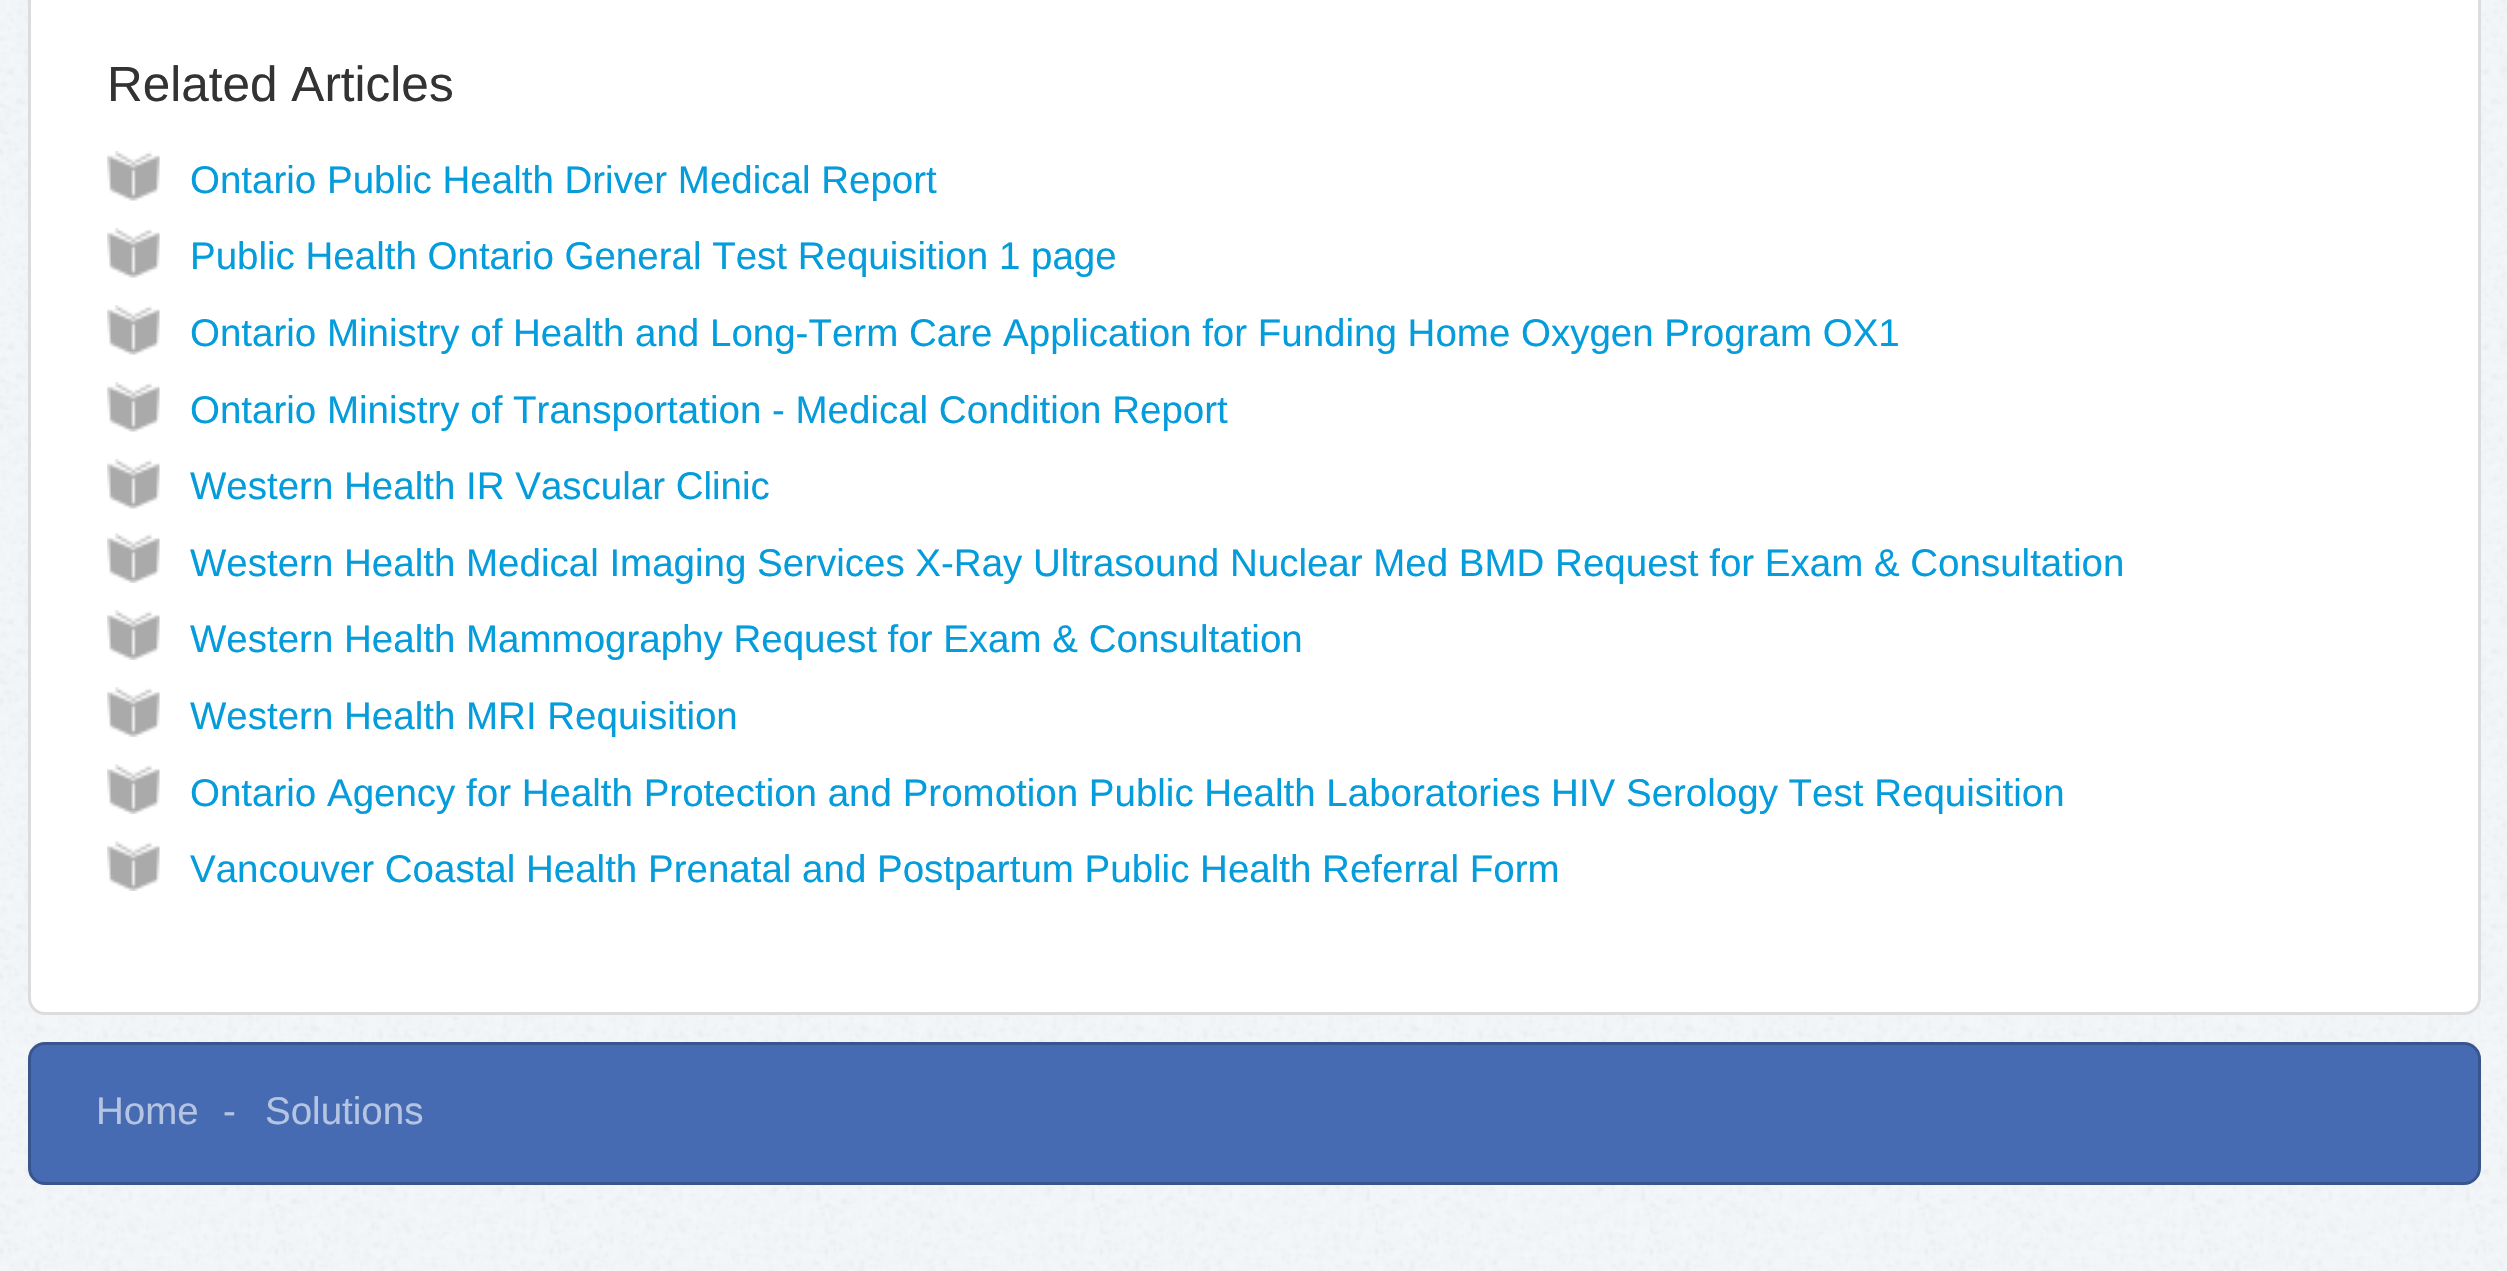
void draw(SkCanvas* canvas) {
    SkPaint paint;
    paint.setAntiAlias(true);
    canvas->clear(0xFFF5F8FA);
    canvas->drawImageRect(SkImages::DeferredFromEncodedData(SkData::MakeFromFileName("img1.png")), SkRect::MakeXYWH(0, 0, 2507, 1271), SkSamplingOptions());
    paint.setColor(0xFFFFFFFF);
    canvas->drawRoundRect(SkRect::MakeXYWH(29.5f, -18.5f, 2450, 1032), 15.5f, 15.5f, paint);
    paint.setStyle(SkPaint::kStroke_Style);
    paint.setStrokeWidth(3);
    paint.setColor(0xFFDCDCDC);
    canvas->drawRoundRect(SkRect::MakeXYWH(29.5f, -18.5f, 2450, 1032), 15.5f, 15.5f, paint);
    SkFont font1(fontMgr->matchFamilyStyle("Liberation Sans", SkFontStyle::Normal()), 49.5f);
    font1.setSubpixel(true);
    paint.setStyle(SkPaint::kFill_Style);
    paint.setColor(0xFF333333);
    canvas->drawString("Related Articles", 107, 101, font1, paint);
    canvas->drawImageRect(SkImages::DeferredFromEncodedData(SkData::MakeFromFileName("img2.png")), SkRect::MakeXYWH(107, 151, 53, 50), SkSamplingOptions());
    SkFont font2(fontMgr->matchFamilyStyle("Liberation Sans", SkFontStyle::Normal()), 38.5f);
    font2.setSubpixel(true);
    paint.setColor(0xFF049CDB);
    canvas->drawString("Ontario Public Health Driver Medical Report", 190, 193, font2, paint);
    canvas->drawImageRect(SkImages::DeferredFromEncodedData(SkData::MakeFromFileName("img2.png")), SkRect::MakeXYWH(107, 228, 53, 50), SkSamplingOptions());
    canvas->drawString("Public Health Ontario General Test Requisition 1 page", 190, 269, font2, paint);
    canvas->drawImageRect(SkImages::DeferredFromEncodedData(SkData::MakeFromFileName("img2.png")), SkRect::MakeXYWH(107, 305, 53, 50), SkSamplingOptions());
    canvas->drawString("Ontario Ministry of Health and Long-Term Care Application for Funding Home Oxygen Program OX1", 190, 346, font2, paint);
    canvas->drawImageRect(SkImages::DeferredFromEncodedData(SkData::MakeFromFileName("img2.png")), SkRect::MakeXYWH(107, 382, 53, 50), SkSamplingOptions());
    canvas->drawString("Ontario Ministry of Transportation - Medical Condition Report", 190, 423, font2, paint);
    canvas->drawImageRect(SkImages::DeferredFromEncodedData(SkData::MakeFromFileName("img2.png")), SkRect::MakeXYWH(107, 459, 53, 50), SkSamplingOptions());
    canvas->drawString("Western Health IR Vascular Clinic", 190, 499, font2, paint);
    canvas->drawImageRect(SkImages::DeferredFromEncodedData(SkData::MakeFromFileName("img3.png")), SkRect::MakeXYWH(107, 533, 53, 50), SkSamplingOptions());
    canvas->drawString("Western Health Medical Imaging Services X-Ray Ultrasound Nuclear Med BMD Request for Exam & Consultation", 190, 576, font2, paint);
    canvas->drawImageRect(SkImages::DeferredFromEncodedData(SkData::MakeFromFileName("img3.png")), SkRect::MakeXYWH(107, 610, 53, 50), SkSamplingOptions());
    canvas->drawString("Western Health Mammography Request for Exam & Consultation", 190, 652, font2, paint);
    canvas->drawImageRect(SkImages::DeferredFromEncodedData(SkData::MakeFromFileName("img3.png")), SkRect::MakeXYWH(107, 687, 53, 50), SkSamplingOptions());
    canvas->drawString("Western Health MRI Requisition", 190, 729, font2, paint);
    canvas->drawImageRect(SkImages::DeferredFromEncodedData(SkData::MakeFromFileName("img4.png")), SkRect::MakeXYWH(107, 764, 53, 50), SkSamplingOptions());
    canvas->drawString("Ontario Agency for Health Protection and Promotion Public Health Laboratories HIV Serology Test Requisition", 190, 806, font2, paint);
    canvas->drawImageRect(SkImages::DeferredFromEncodedData(SkData::MakeFromFileName("img3.png")), SkRect::MakeXYWH(107, 841, 53, 50), SkSamplingOptions());
    canvas->drawString("Vancouver Coastal Health Prenatal and Postpartum Public Health Referral Form", 190, 882, font2, paint);
    paint.setColor(0xFF476BB3);
    canvas->drawRoundRect(SkRect::MakeXYWH(29.5f, 1043.5f, 2450, 140), 15.5f, 15.5f, paint);
    paint.setStyle(SkPaint::kStroke_Style);
    paint.setColor(0xFF39558E);
    canvas->drawRoundRect(SkRect::MakeXYWH(29.5f, 1043.5f, 2450, 140), 15.5f, 15.5f, paint);
    paint.setStyle(SkPaint::kFill_Style);
    paint.setColor(0xFFB5C4E1);
    canvas->drawString("Home", 96, 1124, font2, paint);
    canvas->drawString("-", 223, 1124, font2, paint);
    canvas->drawString("Solutions", 265, 1124, font2, paint);
}
